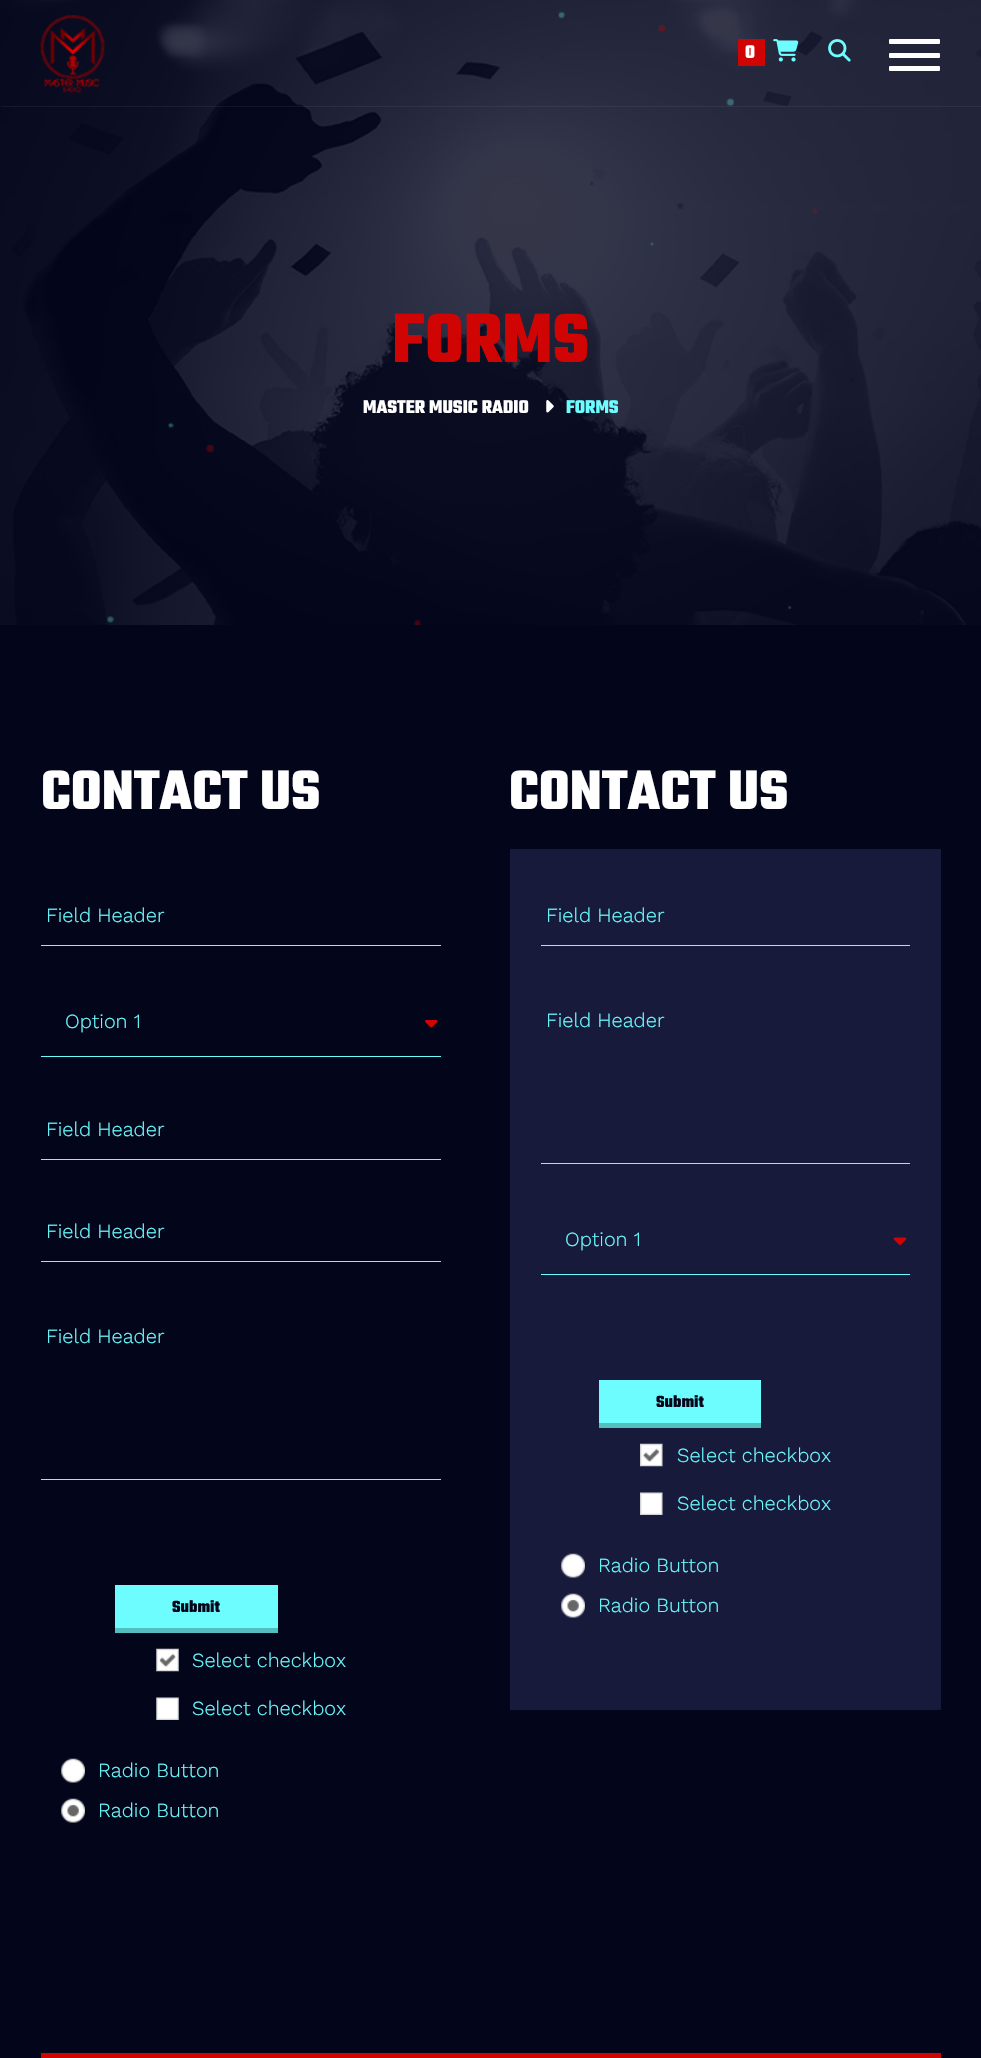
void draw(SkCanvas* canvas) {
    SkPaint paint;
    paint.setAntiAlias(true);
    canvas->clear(0xFF03051A);
    canvas->drawImageRect(SkImages::DeferredFromEncodedData(SkData::MakeFromFileName("img4.png")), SkRect::MakeXYWH(0, 0, 981, 625), SkSamplingOptions());
    canvas->drawImageRect(SkImages::DeferredFromEncodedData(SkData::MakeFromFileName("img5.png")), SkRect::MakeXYWH(106, 11, 747, 614), SkSamplingOptions());
    paint.setColor(0x0DFFFFFF);
    canvas->drawRect(SkRect::MakeXYWH(1, 106, 980, 1), paint);
    canvas->drawImageRect(SkImages::DeferredFromEncodedData(SkData::MakeFromFileName("img1.png")), SkRect::MakeXYWH(40, 15, 65, 78), SkSamplingOptions());
    paint.setColor(0xFFFFFFFF);
    canvas->drawRoundRect(SkRect::MakeXYWH(889, 39, 51, 5), 1, 1, paint);
    canvas->drawRoundRect(SkRect::MakeXYWH(889, 53, 51, 5), 1, 1, paint);
    canvas->drawRoundRect(SkRect::MakeXYWH(889, 66, 51, 5), 1, 1, paint);
    paint.setColor(0xFFD10404);
    canvas->drawRect(SkRect::MakeXYWH(738, 39, 27, 27), paint);
    SkFont font1(fontMgr->matchFamilyStyle("Teko", SkFontStyle(300, SkFontStyle::kNormal_Width, SkFontStyle::kUpright_Slant)), 20);
    font1.setSubpixel(true);
    paint.setColor(0xFFFFFFFF);
    canvas->drawString("0", 745, 58, font1, paint);
    canvas->drawImageRect(SkImages::DeferredFromEncodedData(SkData::MakeFromFileName("img2.png")), SkRect::MakeXYWH(773, 39, 26, 23), SkSamplingOptions());
    canvas->drawImageRect(SkImages::DeferredFromEncodedData(SkData::MakeFromFileName("img3.png")), SkRect::MakeXYWH(828, 39, 23, 23), SkSamplingOptions());
    SkFont font2(fontMgr->matchFamilyStyle("Teko", SkFontStyle(300, SkFontStyle::kNormal_Width, SkFontStyle::kUpright_Slant)), 75);
    font2.setSubpixel(true);
    paint.setColor(0xFFD10404);
    canvas->drawString("FORMS", 392, 362, font2, paint);
    paint.setColor(0xFFFFFFFF);
    canvas->drawString("MASTER MUSIC RADIO", 363, 413, font1, paint);
    canvas->drawImageRect(SkImages::DeferredFromEncodedData(SkData::MakeFromFileName("img6.png")), SkRect::MakeXYWH(546, 400, 8, 13), SkSamplingOptions());
    paint.setColor(0xFF6DFDFF);
    canvas->drawString("FORMS", 566, 413, font1, paint);
    SkFont font3(fontMgr->matchFamilyStyle("Teko", SkFontStyle(300, SkFontStyle::kNormal_Width, SkFontStyle::kUpright_Slant)), 60);
    font3.setSubpixel(true);
    paint.setColor(0xFFFFFFFF);
    canvas->drawString("CONTACT US", 41, 809, font3, paint);
    paint.setColor(0xFF6DFDFF);
    canvas->drawRect(SkRect::MakeXYWH(41, 945, 400, 1), paint);
    SkFont font4(fontMgr->matchFamilyStyle("Work Sans", SkFontStyle(300, SkFontStyle::kNormal_Width, SkFontStyle::kUpright_Slant)), 20);
    font4.setSubpixel(true);
    canvas->drawString("Field Header", 46, 922, font4, paint);
    canvas->drawRect(SkRect::MakeXYWH(41, 1056, 400, 1), paint);
    canvas->drawString("Option 1", 65, 1028, font4, paint);
    canvas->drawImageRect(SkImages::DeferredFromEncodedData(SkData::MakeFromFileName("img7.png")), SkRect::MakeXYWH(425, 1020, 13, 8), SkSamplingOptions());
    canvas->drawRect(SkRect::MakeXYWH(41, 1159, 400, 1), paint);
    canvas->drawString("Field Header", 46, 1136, font4, paint);
    canvas->drawRect(SkRect::MakeXYWH(41, 1261, 400, 1), paint);
    canvas->drawString("Field Header", 46, 1238, font4, paint);
    canvas->drawRect(SkRect::MakeXYWH(41, 1479, 400, 1), paint);
    canvas->drawString("Field Header", 46, 1343, font4, paint);
    canvas->drawRect(SkRect::MakeXYWH(115, 1585, 163, 43), paint);
    SkFont font5(fontMgr->matchFamilyStyle("Teko", SkFontStyle(300, SkFontStyle::kNormal_Width, SkFontStyle::kUpright_Slant)), 17.5f);
    font5.setSubpixel(true);
    paint.setColor(0xFF03051A);
    canvas->drawString("Submit", 172, 1612, font5, paint);
    paint.setColor(0xFF52BEBF);
    canvas->drawRect(SkRect::MakeXYWH(115, 1628, 163, 5), paint);
    canvas->drawImageRect(SkImages::DeferredFromEncodedData(SkData::MakeFromFileName("img8.png")), SkRect::MakeXYWH(156, 1648, 23, 24), SkSamplingOptions());
    paint.setColor(0xFF6DFDFF);
    canvas->drawString("Select checkbox", 192, 1667, font4, paint);
    canvas->drawImageRect(SkImages::DeferredFromEncodedData(SkData::MakeFromFileName("img9.png")), SkRect::MakeXYWH(156, 1697, 23, 23), SkSamplingOptions());
    canvas->drawString("Select checkbox", 192, 1715, font4, paint);
    canvas->drawImageRect(SkImages::DeferredFromEncodedData(SkData::MakeFromFileName("img10.png")), SkRect::MakeXYWH(61, 1758, 24, 25), SkSamplingOptions());
    canvas->drawString("Radio Button", 98, 1777, font4, paint);
    canvas->drawImageRect(SkImages::DeferredFromEncodedData(SkData::MakeFromFileName("img11.png")), SkRect::MakeXYWH(61, 1798, 24, 25), SkSamplingOptions());
    canvas->drawString("Radio Button", 98, 1817, font4, paint);
    paint.setColor(0xFFFFFFFF);
    canvas->drawString("CONTACT US", 509, 809, font3, paint);
    paint.setColor(0xFF171A3B);
    canvas->drawRect(SkRect::MakeXYWH(510, 849, 431, 861), paint);
    paint.setColor(0xFF6DFDFF);
    canvas->drawRect(SkRect::MakeXYWH(541, 945, 369, 1), paint);
    canvas->drawString("Field Header", 546, 922, font4, paint);
    canvas->drawRect(SkRect::MakeXYWH(541, 1163, 369, 1), paint);
    canvas->drawString("Field Header", 546, 1027, font4, paint);
    canvas->drawRect(SkRect::MakeXYWH(541, 1274, 369, 1), paint);
    canvas->drawString("Option 1", 565, 1246, font4, paint);
    canvas->drawImageRect(SkImages::DeferredFromEncodedData(SkData::MakeFromFileName("img12.png")), SkRect::MakeXYWH(893, 1237, 14, 8), SkSamplingOptions());
    canvas->drawRect(SkRect::MakeXYWH(599, 1380, 162, 43), paint);
    paint.setColor(0xFF03051A);
    canvas->drawString("Submit", 656, 1407, font5, paint);
    paint.setColor(0xFF52BEBF);
    canvas->drawRect(SkRect::MakeXYWH(599, 1423, 162, 5), paint);
    canvas->drawImageRect(SkImages::DeferredFromEncodedData(SkData::MakeFromFileName("img13.png")), SkRect::MakeXYWH(640, 1443, 23, 24), SkSamplingOptions());
    paint.setColor(0xFF6DFDFF);
    canvas->drawString("Select checkbox", 677, 1462, font4, paint);
    canvas->drawImageRect(SkImages::DeferredFromEncodedData(SkData::MakeFromFileName("img14.png")), SkRect::MakeXYWH(640, 1492, 23, 23), SkSamplingOptions());
    canvas->drawString("Select checkbox", 677, 1510, font4, paint);
    canvas->drawImageRect(SkImages::DeferredFromEncodedData(SkData::MakeFromFileName("img15.png")), SkRect::MakeXYWH(561, 1553, 24, 25), SkSamplingOptions());
    canvas->drawString("Radio Button", 598, 1572, font4, paint);
    canvas->drawImageRect(SkImages::DeferredFromEncodedData(SkData::MakeFromFileName("img16.png")), SkRect::MakeXYWH(561, 1593, 24, 25), SkSamplingOptions());
    canvas->drawString("Radio Button", 598, 1612, font4, paint);
    paint.setColor(0xFFD10404);
    canvas->drawRect(SkRect::MakeXYWH(41, 2053, 900, 5), paint);
}
